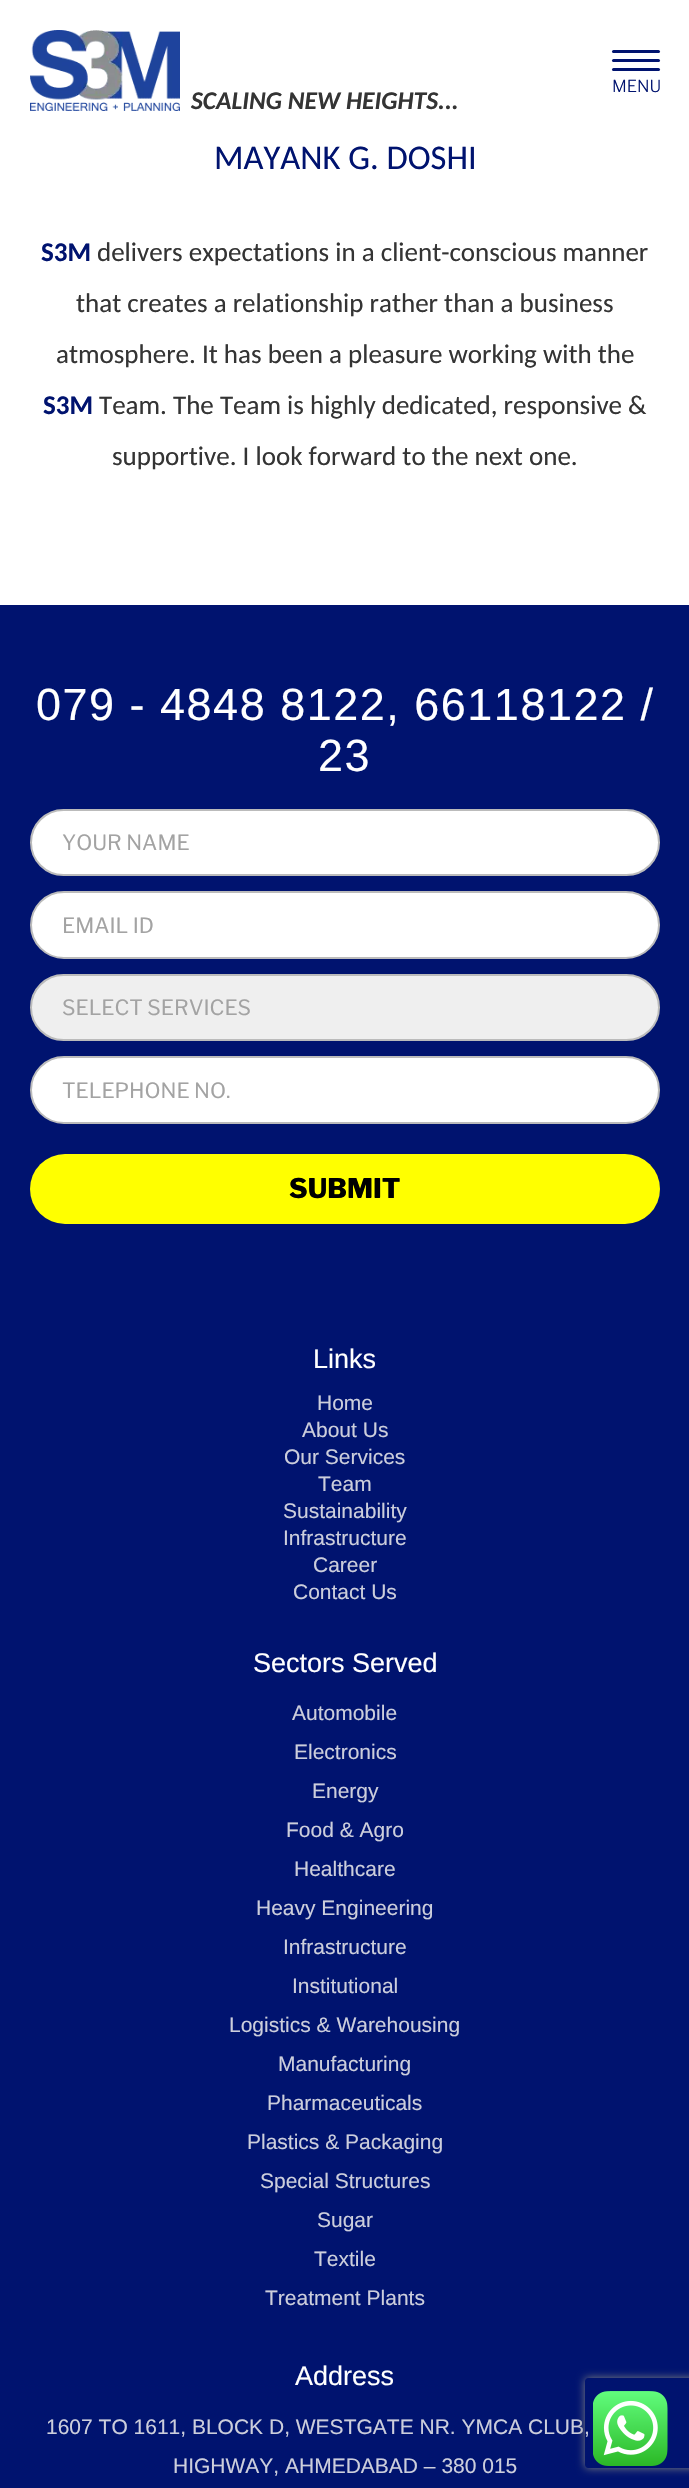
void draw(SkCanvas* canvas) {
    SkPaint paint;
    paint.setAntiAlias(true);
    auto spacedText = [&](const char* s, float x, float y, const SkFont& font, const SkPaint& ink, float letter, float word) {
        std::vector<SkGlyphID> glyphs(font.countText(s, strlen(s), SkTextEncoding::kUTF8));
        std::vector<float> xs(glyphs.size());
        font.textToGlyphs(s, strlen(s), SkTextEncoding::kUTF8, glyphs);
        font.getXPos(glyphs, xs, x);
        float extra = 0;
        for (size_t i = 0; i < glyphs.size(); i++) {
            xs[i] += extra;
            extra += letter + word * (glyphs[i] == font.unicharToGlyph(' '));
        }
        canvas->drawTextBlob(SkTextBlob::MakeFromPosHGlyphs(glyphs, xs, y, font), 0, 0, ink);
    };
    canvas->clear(0xFFFFFFFF);
    paint.setColor(0xFF00136F);
    canvas->drawRoundRect(SkRect::MakeXYWH(612, 50, 48, 3), 1.5f, 1.5f, paint);
    canvas->drawRoundRect(SkRect::MakeXYWH(612, 59, 48, 3), 1.5f, 1.5f, paint);
    canvas->drawRoundRect(SkRect::MakeXYWH(612, 68, 48, 3), 1.5f, 1.5f, paint);
    SkFont font1(fontMgr->matchFamilyStyle("Libre Franklin", SkFontStyle(300, SkFontStyle::kNormal_Width, SkFontStyle::kUpright_Slant)), 16.5f);
    font1.setSubpixel(true);
    canvas->drawString("MENU", 612, 92, font1, paint);
    canvas->drawImageRect(SkImages::DeferredFromEncodedData(SkData::MakeFromFileName("img1.png")), SkRect::MakeXYWH(30, 30, 150, 81), SkSamplingOptions());
    SkFont font2(fontMgr->matchFamilyStyle("Carlito", SkFontStyle::BoldItalic()), 25.5f);
    font2.setSubpixel(true);
    paint.setColor(0xFF343434);
    canvas->drawString("SCALING NEW HEIGHTS...", 191, 109, font2, paint);
    SkFont font3(fontMgr->matchFamilyStyle("Carlito", SkFontStyle::Normal()), 34.5f);
    font3.setSubpixel(true);
    paint.setColor(0xFF00136F);
    canvas->drawString("MAYANK G. DOSHI", 214, 169, font3, paint);
    SkFont font4(fontMgr->matchFamilyStyle("Carlito", SkFontStyle::Bold()), 27);
    font4.setSubpixel(true);
    canvas->drawString("S3M", 41, 261, font4, paint);
    SkFont font5(fontMgr->matchFamilyStyle("Carlito", SkFontStyle::Normal()), 27);
    font5.setSubpixel(true);
    paint.setColor(0xFF343434);
    canvas->drawString("delivers expectations in a client-conscious manner", 97, 261, font5, paint);
    canvas->drawString("that creates a relationship rather than a business", 76, 312, font5, paint);
    canvas->drawString("atmosphere. It has been a pleasure working with the", 56, 363, font5, paint);
    paint.setColor(0xFF00136F);
    canvas->drawString("S3M", 43, 414, font4, paint);
    paint.setColor(0xFF343434);
    canvas->drawString("Team. The Team is highly dedicated, responsive &", 99, 414, font5, paint);
    canvas->drawString("supportive. I look forward to the next one.", 112, 465, font5, paint);
    paint.setColor(0xFF00136F);
    canvas->drawRect(SkRect::MakeXYWH(0, 605, 689, 1883), paint);
    SkFont font6(fontMgr->matchFamilyStyle("Liberation Sans", SkFontStyle::Normal()), 45);
    font6.setSubpixel(true);
    paint.setColor(0xFFFFFFFF);
    spacedText("079 - 4848 8122, 66118122 /", 36, 720, font6, paint, 1.5f, 0);
    spacedText("23", 318, 771, font6, paint, 1.5f, 0);
    canvas->drawRoundRect(SkRect::MakeXYWH(31, 810, 628, 65), 32.5f, 32.5f, paint);
    paint.setStyle(SkPaint::kStroke_Style);
    paint.setStrokeWidth(2);
    paint.setColor(0xFFBBBBBB);
    canvas->drawRoundRect(SkRect::MakeXYWH(31, 810, 628, 65), 32.5f, 32.5f, paint);
    SkFont font7(fontMgr->matchFamilyStyle("Libre Franklin", SkFontStyle::Normal()), 21);
    font7.setSubpixel(true);
    paint.setStyle(SkPaint::kFill_Style);
    paint.setColor(0xFFA3A3A3);
    canvas->drawString("YOUR NAME", 62, 850, font7, paint);
    paint.setColor(0xFFFFFFFF);
    canvas->drawRoundRect(SkRect::MakeXYWH(31, 892, 628, 66), 33, 33, paint);
    paint.setStyle(SkPaint::kStroke_Style);
    paint.setColor(0xFFBBBBBB);
    canvas->drawRoundRect(SkRect::MakeXYWH(31, 892, 628, 66), 33, 33, paint);
    paint.setStyle(SkPaint::kFill_Style);
    paint.setColor(0xFFA3A3A3);
    canvas->drawString("EMAIL ID", 62, 933, font7, paint);
    paint.setColor(0xFFEFEFEF);
    canvas->drawRoundRect(SkRect::MakeXYWH(31, 975, 628, 65), 32.5f, 32.5f, paint);
    paint.setStyle(SkPaint::kStroke_Style);
    paint.setColor(0xFFBBBBBB);
    canvas->drawRoundRect(SkRect::MakeXYWH(31, 975, 628, 65), 32.5f, 32.5f, paint);
    paint.setStyle(SkPaint::kFill_Style);
    paint.setColor(0xFFA3A3A3);
    canvas->drawString("SELECT SERVICES", 62, 1015, font7, paint);
    paint.setColor(0xFFFFFFFF);
    canvas->drawRoundRect(SkRect::MakeXYWH(31, 1057, 628, 66), 33, 33, paint);
    paint.setStyle(SkPaint::kStroke_Style);
    paint.setColor(0xFFBBBBBB);
    canvas->drawRoundRect(SkRect::MakeXYWH(31, 1057, 628, 66), 33, 33, paint);
    paint.setStyle(SkPaint::kFill_Style);
    paint.setColor(0xFFA3A3A3);
    canvas->drawString("TELEPHONE NO.", 62, 1098, font7, paint);
    paint.setColor(0xFFFFFF00);
    canvas->drawRoundRect(SkRect::MakeXYWH(30, 1154, 630, 70), 35, 35, paint);
    SkFont font8(fontMgr->matchFamilyStyle("Libre Franklin", SkFontStyle(800, SkFontStyle::kNormal_Width, SkFontStyle::kUpright_Slant)), 27);
    font8.setSubpixel(true);
    paint.setColor(0xFF000000);
    canvas->drawString("SUBMIT", 289, 1198, font8, paint);
    SkFont font9(fontMgr->matchFamilyStyle("Liberation Sans", SkFontStyle::Normal()), 27);
    font9.setSubpixel(true);
    paint.setColor(0xFFFFFFFF);
    canvas->drawString("Links", 313, 1368, font9, paint);
    SkFont font10(fontMgr->matchFamilyStyle("Liberation Sans", SkFontStyle::Normal()), 21);
    font10.setSubpixel(true);
    paint.setColor(0xFFCCCEDC);
    canvas->drawString("Home", 317, 1410, font10, paint);
    canvas->drawString("About Us", 302, 1437, font10, paint);
    canvas->drawString("Our Services", 284, 1464, font10, paint);
    canvas->drawString("Team", 318, 1491, font10, paint);
    canvas->drawString("Sustainability", 283, 1518, font10, paint);
    canvas->drawString("Infrastructure", 283, 1545, font10, paint);
    canvas->drawString("Career", 313, 1572, font10, paint);
    canvas->drawString("Contact Us", 293, 1599, font10, paint);
    paint.setColor(0xFFFFFFFF);
    canvas->drawString("Sectors Served", 253, 1672, font9, paint);
    paint.setColor(0xFFCCCEDC);
    canvas->drawString("Automobile", 292, 1720, font10, paint);
    canvas->drawString("Electronics", 294, 1759, font10, paint);
    canvas->drawString("Energy", 312, 1798, font10, paint);
    canvas->drawString("Food & Agro", 286, 1837, font10, paint);
    canvas->drawString("Healthcare", 294, 1876, font10, paint);
    canvas->drawString("Heavy Engineering", 256, 1915, font10, paint);
    canvas->drawString("Infrastructure", 283, 1954, font10, paint);
    canvas->drawString("Institutional", 292, 1993, font10, paint);
    canvas->drawString("Logistics & Warehousing", 229, 2032, font10, paint);
    canvas->drawString("Manufacturing", 278, 2071, font10, paint);
    canvas->drawString("Pharmaceuticals", 267, 2110, font10, paint);
    canvas->drawString("Plastics & Packaging", 247, 2149, font10, paint);
    canvas->drawString("Special Structures", 260, 2188, font10, paint);
    canvas->drawString("Sugar", 317, 2227, font10, paint);
    canvas->drawString("Textile", 314, 2266, font10, paint);
    canvas->drawString("Treatment Plants", 265, 2305, font10, paint);
    paint.setColor(0xFFFFFFFF);
    canvas->drawString("Address", 295, 2385, font9, paint);
    paint.setColor(0xFFCCCEDC);
    canvas->drawString("1607 TO 1611, BLOCK D, WESTGATE NR. YMCA CLUB,", 46, 2434, font10, paint);
    canvas->drawString("HIGHWAY, AHMEDABAD – 380 015", 173, 2473, font10, paint);
    canvas->save();
    canvas->clipPath(SkPathBuilder(SkPathFillType::kEvenOdd).moveTo(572, 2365).lineTo(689, 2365).lineTo(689, 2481).lineTo(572, 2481).close().moveTo(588, 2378).lineTo(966, 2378).cubicTo(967.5f, 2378, 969, 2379.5f, 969, 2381).lineTo(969, 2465).cubicTo(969, 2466.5f, 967.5f, 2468, 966, 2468).lineTo(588, 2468).cubicTo(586.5f, 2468, 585, 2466.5f, 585, 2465).lineTo(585, 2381).cubicTo(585, 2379.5f, 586.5f, 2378, 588, 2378).close().detach(), true);
    paint.setColor(0xFF808080);
    paint.setMaskFilter(SkMaskFilter::MakeBlur(kNormal_SkBlurStyle, 4));
    canvas->drawRoundRect(SkRect::MakeXYWH(585, 2378, 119, 90), 3, 3, paint);
    paint.setMaskFilter(nullptr);
    canvas->restore();
    canvas->drawImageRect(SkImages::DeferredFromEncodedData(SkData::MakeFromFileName("img2.png")), SkRect::MakeXYWH(593, 2391, 75, 75), SkSamplingOptions());
}
